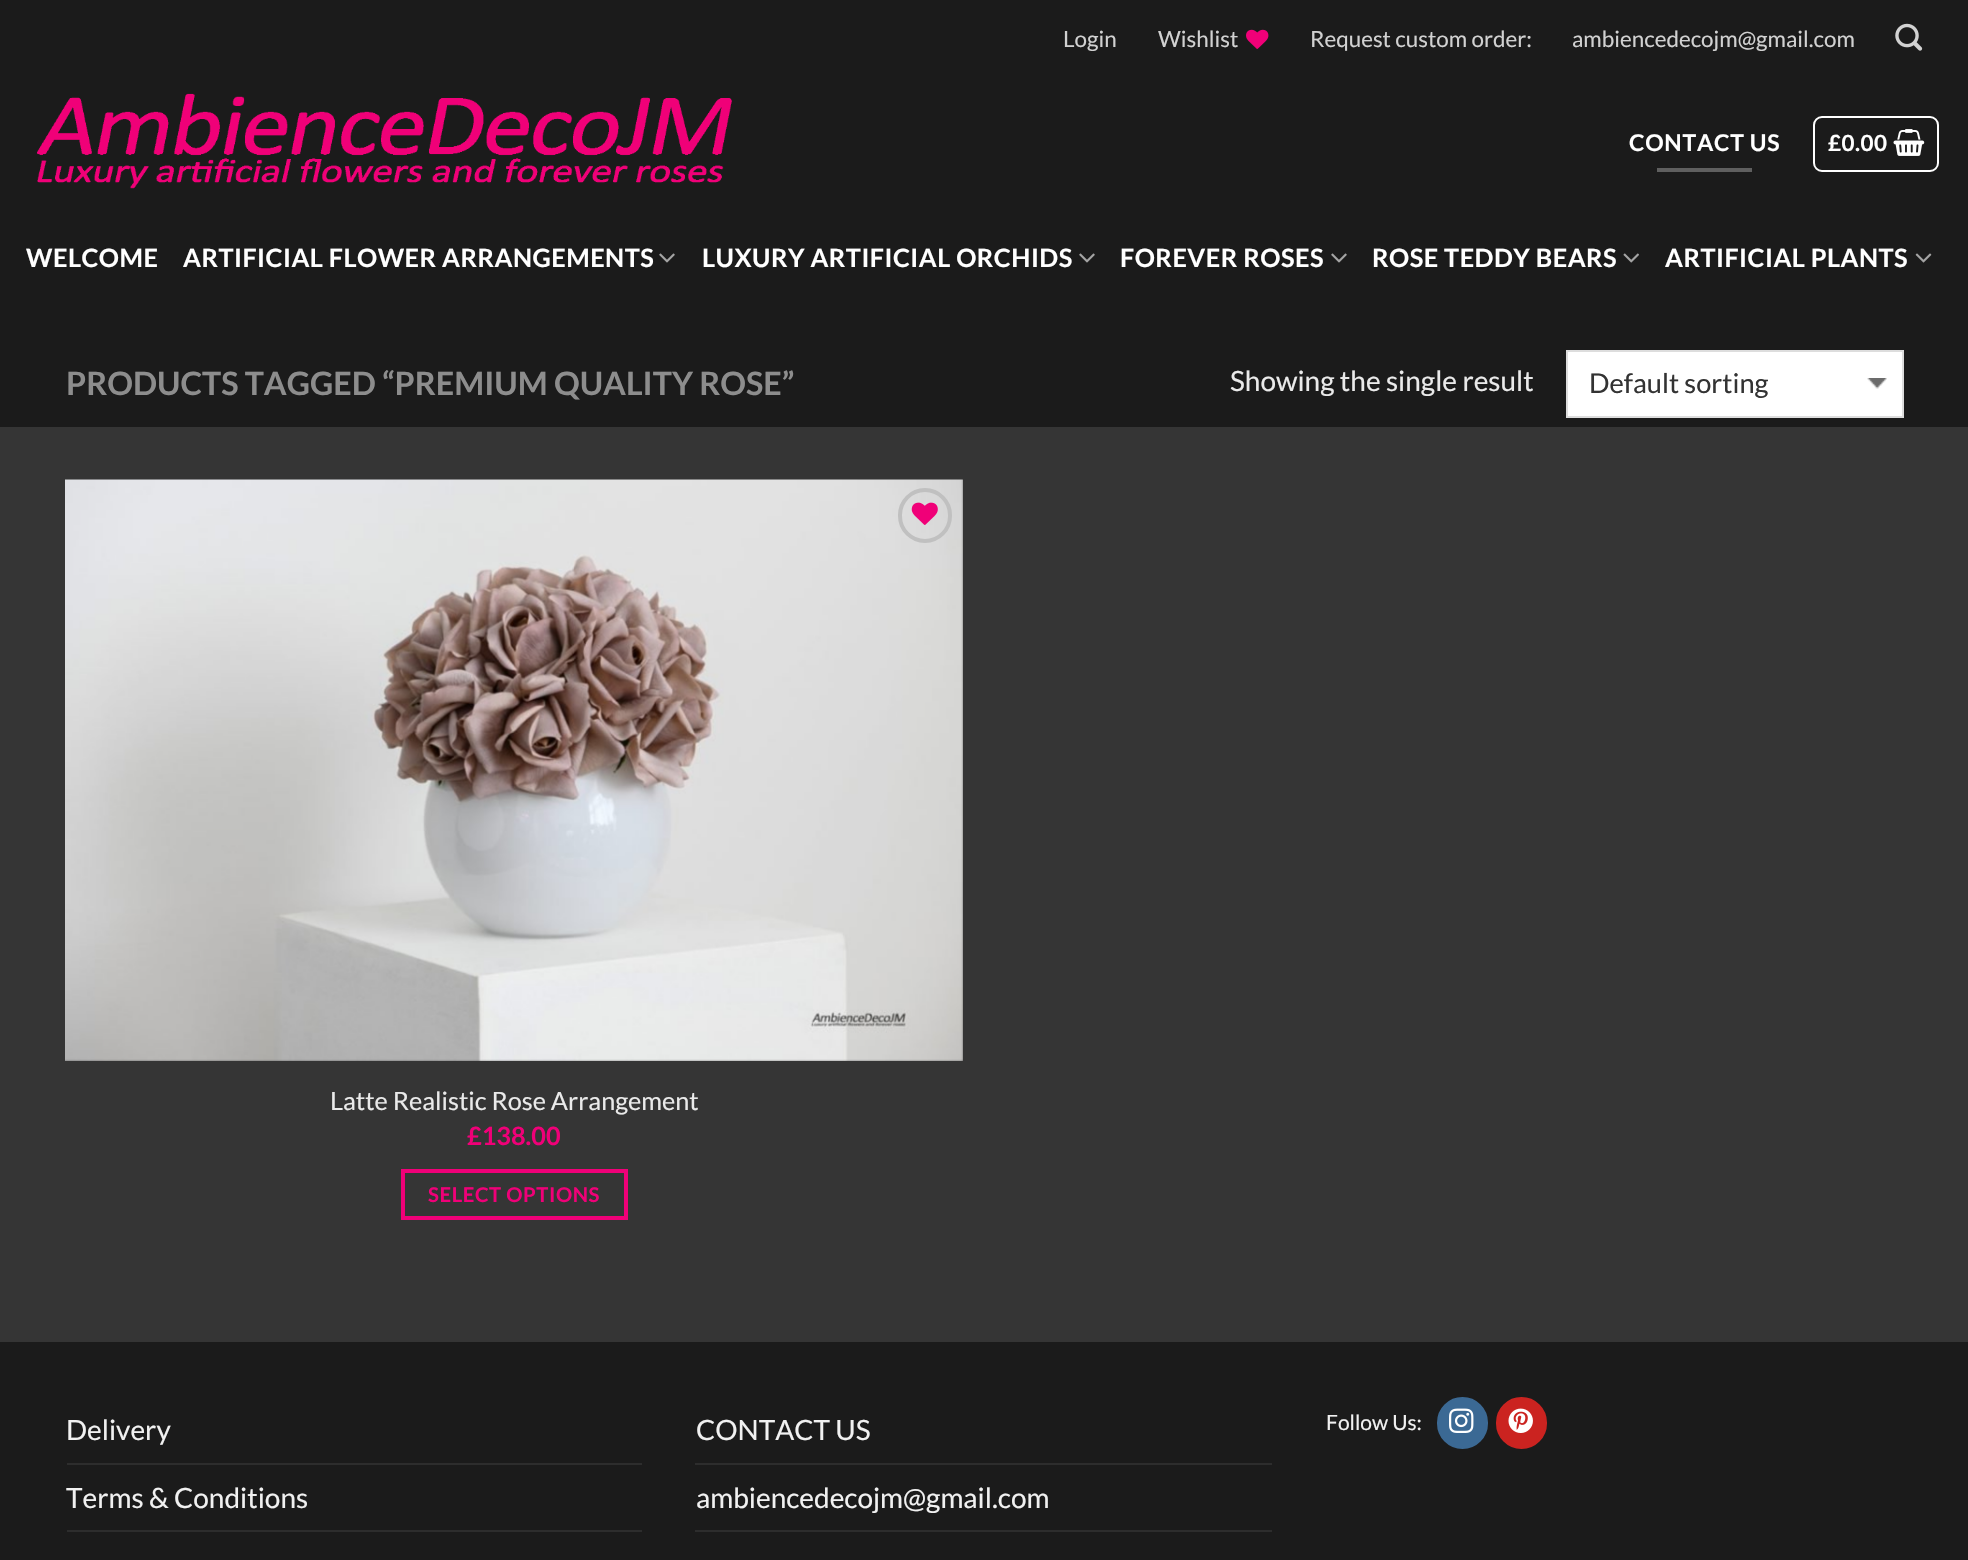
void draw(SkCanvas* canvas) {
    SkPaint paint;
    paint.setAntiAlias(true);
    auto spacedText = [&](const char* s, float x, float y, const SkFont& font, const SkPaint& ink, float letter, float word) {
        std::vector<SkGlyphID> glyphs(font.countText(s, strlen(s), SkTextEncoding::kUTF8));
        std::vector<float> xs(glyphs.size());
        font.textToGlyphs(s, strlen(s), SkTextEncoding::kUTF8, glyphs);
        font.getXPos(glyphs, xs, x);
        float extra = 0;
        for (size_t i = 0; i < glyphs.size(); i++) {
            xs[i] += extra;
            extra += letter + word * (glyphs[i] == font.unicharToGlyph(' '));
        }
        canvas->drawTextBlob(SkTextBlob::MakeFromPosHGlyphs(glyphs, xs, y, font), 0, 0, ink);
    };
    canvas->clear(0xFF353535);
    paint.setColor(0xFF1B1B1B);
    canvas->drawRect(SkRect::MakeXYWH(0, 0, 1968, 427), paint);
    SkFont font1(fontMgr->matchFamilyStyle("Lato", SkFontStyle::Normal()), 22.4f);
    font1.setSubpixel(true);
    paint.setColor(0xFFD1D1D1);
    canvas->drawString("Login", 1063, 47, font1, paint);
    canvas->drawString("Wishlist", 1158, 47, font1, paint);
    canvas->drawImageRect(SkImages::DeferredFromEncodedData(SkData::MakeFromFileName("img1.png")), SkRect::MakeXYWH(1246, 29, 23, 20), SkSamplingOptions());
    canvas->drawString("Request custom order:", 1310, 47, font1, paint);
    canvas->drawString("ambiencedecojm@gmail.com", 1572, 47, font1, paint);
    canvas->drawImageRect(SkImages::DeferredFromEncodedData(SkData::MakeFromFileName("img2.png")), SkRect::MakeXYWH(1895, 23, 28, 28), SkSamplingOptions());
    canvas->drawImageRect(SkImages::DeferredFromEncodedData(SkData::MakeFromFileName("img3.png")), SkRect::MakeXYWH(37, 93, 695, 96), SkSamplingOptions());
    SkFont font2(fontMgr->matchFamilyStyle("Lato", SkFontStyle::Bold()), 23);
    font2.setSubpixel(true);
    paint.setColor(0xFFFFFFFF);
    spacedText("CONTACT US", 1629, 151, font2, paint, 0.75f, 0);
    paint.setColor(0xFF5F5F5F);
    canvas->drawRect(SkRect::MakeXYWH(1657, 168, 95, 4), paint);
    paint.setStyle(SkPaint::kStroke_Style);
    paint.setStrokeWidth(2);
    paint.setColor(0xFFFFFFFF);
    canvas->drawRoundRect(SkRect::MakeXYWH(1814, 117, 124, 54), 8, 8, paint);
    SkFont font3(fontMgr->matchFamilyStyle("Lato", SkFontStyle::Bold()), 22.4f);
    font3.setSubpixel(true);
    paint.setStyle(SkPaint::kFill_Style);
    spacedText("£0.00", 1828, 151, font3, paint, 0.5f, 0);
    canvas->drawImageRect(SkImages::DeferredFromEncodedData(SkData::MakeFromFileName("img4.png")), SkRect::MakeXYWH(1893, 129, 32, 27), SkSamplingOptions());
    SkFont font4(fontMgr->matchFamilyStyle("Lato", SkFontStyle::Bold()), 25.25f);
    font4.setSubpixel(true);
    spacedText("WELCOME", 26, 267, font4, paint, 0.5f, 0);
    spacedText("ARTIFICIAL FLOWER ARRANGEMENTS", 183, 267, font4, paint, 0.5f, 0);
    canvas->drawImageRect(SkImages::DeferredFromEncodedData(SkData::MakeFromFileName("img5.png")), SkRect::MakeXYWH(659, 253, 16, 10), SkSamplingOptions());
    spacedText("LUXURY ARTIFICIAL ORCHIDS", 702, 267, font4, paint, 0.5f, 0);
    canvas->drawImageRect(SkImages::DeferredFromEncodedData(SkData::MakeFromFileName("img5.png")), SkRect::MakeXYWH(1079, 253, 16, 10), SkSamplingOptions());
    spacedText("FOREVER ROSES", 1120, 267, font4, paint, 0.5f, 0);
    canvas->drawImageRect(SkImages::DeferredFromEncodedData(SkData::MakeFromFileName("img5.png")), SkRect::MakeXYWH(1331, 253, 16, 10), SkSamplingOptions());
    spacedText("ROSE TEDDY BEARS", 1372, 267, font4, paint, 0.5f, 0);
    canvas->drawImageRect(SkImages::DeferredFromEncodedData(SkData::MakeFromFileName("img6.png")), SkRect::MakeXYWH(1623, 253, 16, 10), SkSamplingOptions());
    spacedText("ARTIFICIAL PLANTS", 1665, 267, font4, paint, 0.5f, 0);
    canvas->drawImageRect(SkImages::DeferredFromEncodedData(SkData::MakeFromFileName("img7.png")), SkRect::MakeXYWH(1915, 253, 17, 10), SkSamplingOptions());
    SkFont font5(fontMgr->matchFamilyStyle("Lato", SkFontStyle::Bold()), 32.2f);
    font5.setSubpixel(true);
    paint.setColor(0xFF8D8D8D);
    canvas->drawString("PRODUCTS TAGGED “PREMIUM QUALITY ROSE”", 66, 395, font5, paint);
    SkFont font6(fontMgr->matchFamilyStyle("Lato", SkFontStyle::Normal()), 28);
    font6.setSubpixel(true);
    paint.setColor(0xFFEAEAEA);
    canvas->drawString("Showing the single result", 1230, 391, font6, paint);
    paint.setColor(0xFFFFFFFF);
    canvas->drawRect(SkRect::MakeXYWH(1568, 352, 334, 64), paint);
    canvas->drawImageRect(SkImages::DeferredFromEncodedData(SkData::MakeFromFileName("img8.png")), SkRect::MakeXYWH(1867, 378, 20, 11), SkSamplingOptions());
    paint.setStyle(SkPaint::kStroke_Style);
    paint.setColor(0xFFDDDDDD);
    canvas->drawRect(SkRect::MakeXYWH(1567, 351, 336, 66), paint);
    SkFont font7(fontMgr->matchFamilyStyle("Lato", SkFontStyle::Normal()), 27.25f);
    font7.setSubpixel(true);
    paint.setStyle(SkPaint::kFill_Style);
    paint.setColor(0xFF333333);
    canvas->drawString("Default sorting", 1589, 393, font7, paint);
    canvas->drawImageRect(SkImages::DeferredFromEncodedData(SkData::MakeFromFileName("img9.png")), SkRect::MakeXYWH(65, 479, 898, 582), SkSamplingOptions());
    canvas->drawImageRect(SkImages::DeferredFromEncodedData(SkData::MakeFromFileName("img10.png")), SkRect::MakeXYWH(65, 479, 898, 582), SkSamplingOptions());
    paint.setStyle(SkPaint::kStroke_Style);
    paint.setStrokeWidth(4);
    paint.setColor(0xFFC0C0C0);
    canvas->drawRoundRect(SkRect::MakeXYWH(900, 490, 50, 51), 25, 25, paint);
    canvas->drawImageRect(SkImages::DeferredFromEncodedData(SkData::MakeFromFileName("img11.png")), SkRect::MakeXYWH(911, 502, 27, 23), SkSamplingOptions());
    SkFont font8(fontMgr->matchFamilyStyle("Lato", SkFontStyle::Normal()), 25.25f);
    font8.setSubpixel(true);
    paint.setStyle(SkPaint::kFill_Style);
    paint.setColor(0xFFEAEAEA);
    canvas->drawString("Latte Realistic Rose Arrangement", 330, 1110, font8, paint);
    paint.setColor(0xFFF00078);
    canvas->drawString("£138.00", 467, 1145, font4, paint);
    paint.setStyle(SkPaint::kStroke_Style);
    canvas->drawRect(SkRect::MakeXYWH(403, 1171, 223, 47), paint);
    SkFont font9(fontMgr->matchFamilyStyle("Lato", SkFontStyle::Bold()), 20.25f);
    font9.setSubpixel(true);
    paint.setStyle(SkPaint::kFill_Style);
    spacedText("SELECT OPTIONS", 428, 1202, font9, paint, 0.6f, 0);
    paint.setColor(0xFF1B1B1B);
    canvas->drawRect(SkRect::MakeXYWH(0, 1342, 1968, 218), paint);
    paint.setColor(0xFFF1F1F1);
    canvas->drawString("Delivery", 66, 1440, font6, paint);
    paint.setColor(0xFF2D2D2D);
    canvas->drawRect(SkRect::MakeXYWH(67, 1463, 575, 2), paint);
    paint.setColor(0xFFF1F1F1);
    canvas->drawString("Terms & Conditions", 66, 1508, font6, paint);
    paint.setColor(0xFF2D2D2D);
    canvas->drawRect(SkRect::MakeXYWH(67, 1530, 575, 2), paint);
    paint.setColor(0xFFF1F1F1);
    canvas->drawString("CONTACT US", 696, 1440, font6, paint);
    paint.setColor(0xFF2D2D2D);
    canvas->drawRect(SkRect::MakeXYWH(695, 1463, 577, 2), paint);
    paint.setColor(0xFFF1F1F1);
    canvas->drawString("ambiencedecojm@gmail.com", 696, 1508, font6, paint);
    paint.setColor(0xFF2D2D2D);
    canvas->drawRect(SkRect::MakeXYWH(695, 1530, 577, 2), paint);
    SkFont font10(fontMgr->matchFamilyStyle("Lato", SkFontStyle::Normal()), 21);
    font10.setSubpixel(true);
    paint.setColor(0xFFF1F1F1);
    canvas->drawString("Follow Us:", 1326, 1430, font10, paint);
    paint.setColor(0xFF3B6994);
    canvas->drawRoundRect(SkRect::MakeXYWH(1438, 1398, 49, 50), 24.5f, 24.5f, paint);
    paint.setStyle(SkPaint::kStroke_Style);
    paint.setStrokeWidth(2);
    canvas->drawRoundRect(SkRect::MakeXYWH(1438, 1398, 49, 50), 24.5f, 24.5f, paint);
    canvas->drawImageRect(SkImages::DeferredFromEncodedData(SkData::MakeFromFileName("img12.png")), SkRect::MakeXYWH(1449, 1408, 25, 25), SkSamplingOptions());
    paint.setStyle(SkPaint::kFill_Style);
    paint.setColor(0xFFCB2320);
    canvas->drawRoundRect(SkRect::MakeXYWH(1497, 1398, 49, 50), 24.5f, 24.5f, paint);
    paint.setStyle(SkPaint::kStroke_Style);
    canvas->drawRoundRect(SkRect::MakeXYWH(1497, 1398, 49, 50), 24.5f, 24.5f, paint);
    canvas->drawImageRect(SkImages::DeferredFromEncodedData(SkData::MakeFromFileName("img13.png")), SkRect::MakeXYWH(1508, 1408, 25, 25), SkSamplingOptions());
}
